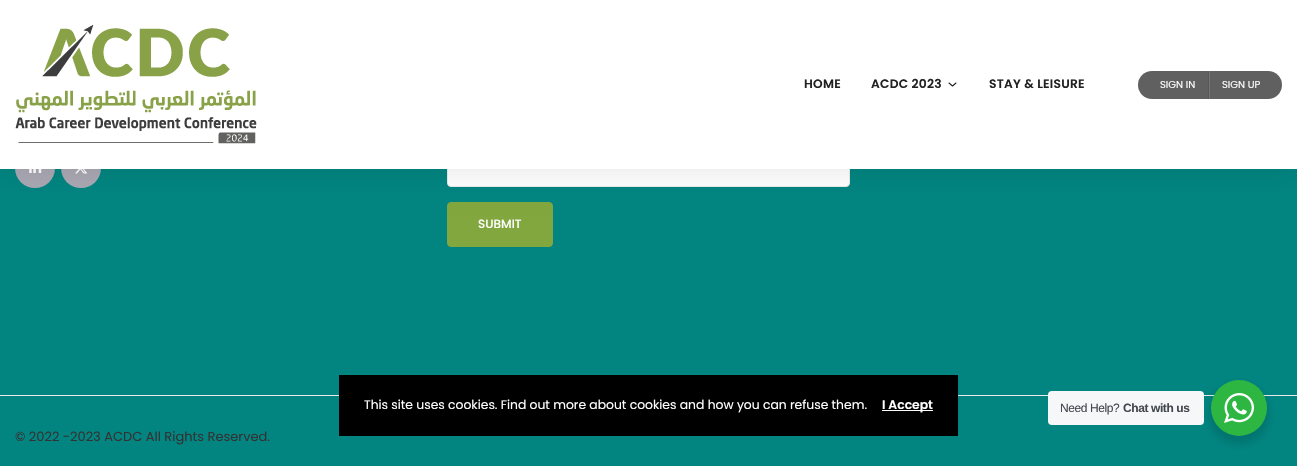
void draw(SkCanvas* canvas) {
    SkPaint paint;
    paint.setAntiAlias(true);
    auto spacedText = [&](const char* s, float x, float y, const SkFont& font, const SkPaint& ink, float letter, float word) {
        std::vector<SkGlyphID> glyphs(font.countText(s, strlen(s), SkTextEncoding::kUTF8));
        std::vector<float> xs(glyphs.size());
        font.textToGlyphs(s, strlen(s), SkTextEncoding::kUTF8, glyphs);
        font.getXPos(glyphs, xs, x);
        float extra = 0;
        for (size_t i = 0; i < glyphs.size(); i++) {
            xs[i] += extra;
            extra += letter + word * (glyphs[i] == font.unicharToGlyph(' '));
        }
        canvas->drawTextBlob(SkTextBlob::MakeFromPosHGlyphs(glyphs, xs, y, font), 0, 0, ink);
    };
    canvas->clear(0xFF028581);
    paint.setColor(0xFFA9A8B3);
    canvas->drawCircle(35, 168, 20, paint);
    canvas->drawImageRect(SkImages::DeferredFromEncodedData(SkData::MakeFromFileName("img2.png")), SkRect::MakeXYWH(29, 169, 13, 4), SkSamplingOptions());
    canvas->drawCircle(81, 168, 20, paint);
    canvas->drawImageRect(SkImages::DeferredFromEncodedData(SkData::MakeFromFileName("img3.png")), SkRect::MakeXYWH(75, 169, 13, 5), SkSamplingOptions());
    paint.setColor(0xFFFFFFFF);
    canvas->drawRoundRect(SkRect::MakeXYWH(447.5f, 48.5f, 402, 138), 3.5f, 3.5f, paint);
    paint.setStyle(SkPaint::kStroke_Style);
    paint.setStrokeWidth(1);
    paint.setColor(0xFFEAEAEA);
    canvas->drawRoundRect(SkRect::MakeXYWH(447.5f, 48.5f, 402, 138), 3.5f, 3.5f, paint);
    paint.setStyle(SkPaint::kFill_Style);
    paint.setColor(0xFF82A73E);
    canvas->drawRoundRect(SkRect::MakeXYWH(447.5f, 202.5f, 105, 44), 3.5f, 3.5f, paint);
    paint.setStyle(SkPaint::kStroke_Style);
    canvas->drawRoundRect(SkRect::MakeXYWH(447.5f, 202.5f, 105, 44), 3.5f, 3.5f, paint);
    paint.setStyle(SkPaint::kFill_Style);
    paint.setColor(0x1A000000);
    paint.setMaskFilter(SkMaskFilter::MakeBlur(kNormal_SkBlurStyle, 15));
    canvas->drawRect(SkRect::MakeXYWH(0, 1, 1297, 169), paint);
    paint.setMaskFilter(nullptr);
    paint.setColor(0xFFFFFFFF);
    canvas->drawRect(SkRect::MakeXYWH(0, 0, 1297, 169), paint);
    canvas->drawImageRect(SkImages::DeferredFromEncodedData(SkData::MakeFromFileName("img1.png")), SkRect::MakeXYWH(15, 25, 242, 119), SkSamplingOptions());
    SkFont font1(fontMgr->matchFamilyStyle("Poppins", SkFontStyle(600, SkFontStyle::kNormal_Width, SkFontStyle::kUpright_Slant)), 12.25f);
    font1.setSubpixel(true);
    paint.setColor(0xFF222222);
    spacedText("HOME", 804, 88, font1, paint, 0.25f, 0);
    spacedText("ACDC 2023", 871, 88, font1, paint, 0.25f, 0);
    paint.setStyle(SkPaint::kStroke_Style);
    paint.setStrokeWidth(1.1f);
    paint.setStrokeCap(SkPaint::kRound_Cap);
    paint.setStrokeJoin(SkPaint::kRound_Join);
    canvas->drawPath(SkPathBuilder().moveTo(949, 83).lineTo(952.5f, 86).lineTo(956, 83).detach(), paint);
    paint.setStyle(SkPaint::kFill_Style);
    spacedText("STAY & LEISURE", 989, 88, font1, paint, 0.25f, 0);
    paint.setColor(0xFF616060);
    canvas->drawRoundRect(SkRect::MakeXYWH(1138, 71, 144, 28), 14, 14, paint);
    paint.setColor(0xFF595858);
    canvas->drawRect(SkRect::MakeXYWH(1208, 71, 1, 28), paint);
    SkFont font2(fontMgr->matchFamilyStyle("Poppins", SkFontStyle::Normal()), 10);
    font2.setSubpixel(true);
    paint.setColor(0xFFFFFFFF);
    canvas->drawString("SIGN IN", 1160, 88, font2, paint);
    paint.setColor(0xFF767575);
    canvas->drawRect(SkRect::MakeXYWH(1209, 71, 1, 28), paint);
    paint.setColor(0xFFFFFFFF);
    canvas->drawString("SIGN UP", 1222, 88, font2, paint);
    SkFont font3(fontMgr->matchFamilyStyle("Poppins", SkFontStyle(500, SkFontStyle::kNormal_Width, SkFontStyle::kUpright_Slant)), 12);
    font3.setSubpixel(true);
    canvas->drawString("SUBMIT", 478, 228, font3, paint);
    paint.setColor(0xFFEAEAEA);
    canvas->drawRect(SkRect::MakeXYWH(0, 395, 1297, 1), paint);
    SkFont font4(fontMgr->matchFamilyStyle("Poppins", SkFontStyle::Normal()), 13);
    font4.setSubpixel(true);
    paint.setColor(0xFF333333);
    canvas->drawString("© 2022 -2023 ACDC All Rights Reserved.", 15, 441, font4, paint);
    paint.setColor(0xFF000000);
    canvas->drawRect(SkRect::MakeXYWH(339, 375, 619, 61), paint);
    SkFont font5(fontMgr->matchFamilyStyle("Poppins", SkFontStyle::Normal()), 12.35f);
    font5.setSubpixel(true);
    paint.setColor(0xFFFFFFFF);
    canvas->drawString("This site uses cookies. Find out more about cookies and how you can refuse them.", 364, 409, font5, paint);
    canvas->drawRect(SkRect::MakeXYWH(882, 410, 51, 1), paint);
    SkFont font6(fontMgr->matchFamilyStyle("Poppins", SkFontStyle(600, SkFontStyle::kNormal_Width, SkFontStyle::kUpright_Slant)), 12.35f);
    font6.setSubpixel(true);
    canvas->drawString("I Accept", 882, 409, font6, paint);
    paint.setColor(0x24000000);
    paint.setMaskFilter(SkMaskFilter::MakeBlur(kNormal_SkBlurStyle, 4));
    canvas->drawRoundRect(SkRect::MakeXYWH(1209, 384, 60, 60), 30, 30, paint);
    paint.setMaskFilter(nullptr);
    paint.setColor(0xFFF5F7F9);
    canvas->drawRoundRect(SkRect::MakeXYWH(1048, 391, 156, 34), 4, 4, paint);
    SkFont font7(fontMgr->matchFamilyStyle("Liberation Sans", SkFontStyle::Normal()), 12);
    font7.setSubpixel(true);
    paint.setColor(0xFF43474E);
    spacedText("Need Help?", 1060, 412, font7, paint, -0.4f, 0);
    SkFont font8(fontMgr->matchFamilyStyle("Liberation Sans", SkFontStyle::Bold()), 12);
    font8.setSubpixel(true);
    spacedText("Chat with us", 1123, 412, font8, paint, -0.4f, 0);
    paint.setColor(0xFF2DB742);
    canvas->drawCircle(1239, 408, 28, paint);
    canvas->drawImageRect(SkImages::DeferredFromEncodedData(SkData::MakeFromFileName("img4.png")), SkRect::MakeXYWH(1224, 393, 30, 30), SkSamplingOptions());
}
